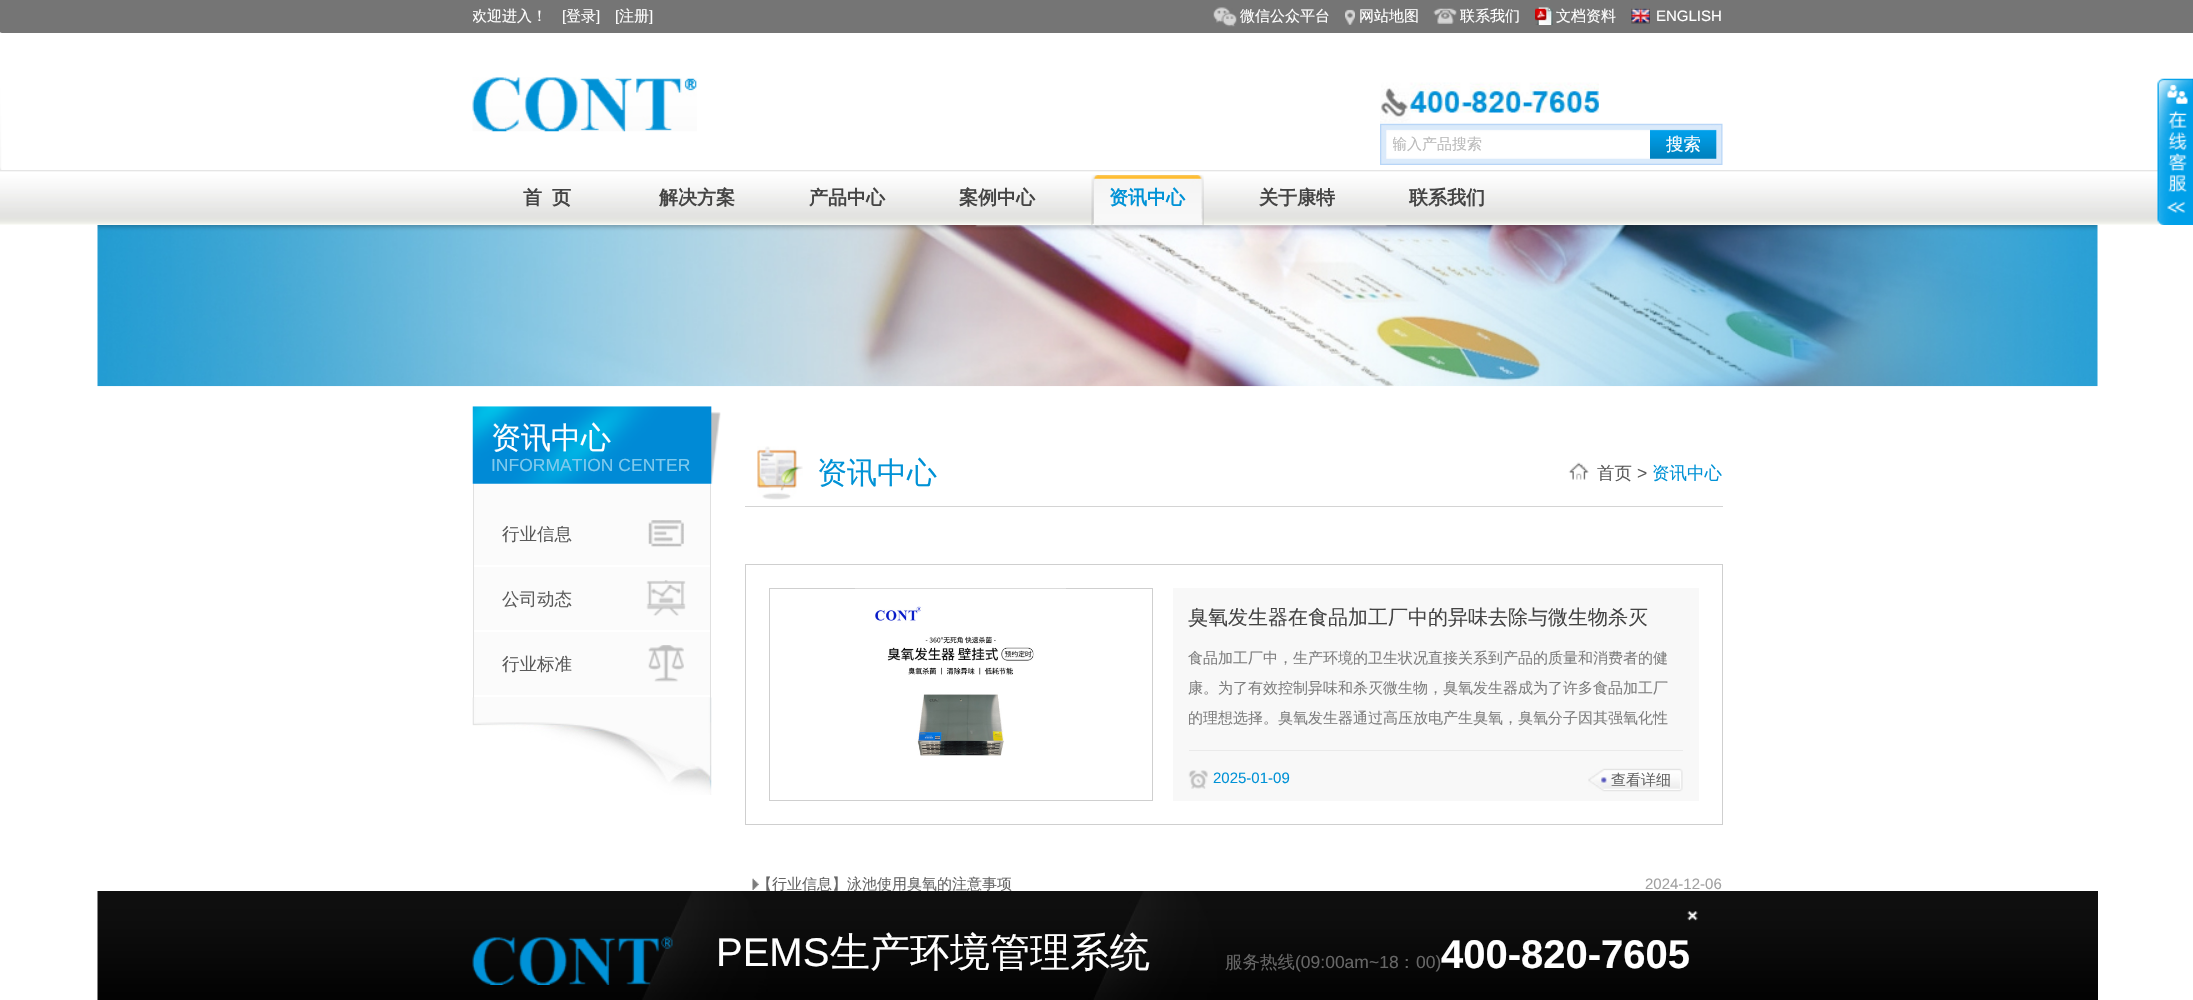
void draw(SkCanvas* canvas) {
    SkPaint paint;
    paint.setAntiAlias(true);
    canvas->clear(0xFFFFFFFF);
    paint.setColor(0xFF757575);
    canvas->drawRect(SkRect::MakeXYWH(0, 0, 2193, 33), paint);
    canvas->save();
    canvas->clipRect(SkRect::MakeXYWH(473, 0, 75, 33));
    SkFont font1(fontMgr->matchFamilyStyle("WenQuanYi Zen Hei", SkFontStyle(500, SkFontStyle::kNormal_Width, SkFontStyle::kUpright_Slant)), 15);
    font1.setSubpixel(true);
    paint.setColor(0xFFFFFFFF);
    canvas->drawString("欢迎进入！", 472, 21, font1, paint);
    canvas->restore();
    SkFont font2(fontMgr->matchFamilyStyle("Liberation Sans", SkFontStyle::Normal()), 15);
    font2.setSubpixel(true);
    canvas->drawString("[", 562, 21, font2, paint);
    canvas->drawString("登录", 566, 21, font1, paint);
    canvas->drawString("]", 596, 21, font2, paint);
    canvas->drawString("[", 615, 21, font2, paint);
    canvas->drawString("注册", 619, 21, font1, paint);
    canvas->drawString("]", 649, 21, font2, paint);
    canvas->drawImageRect(SkImages::DeferredFromEncodedData(SkData::MakeFromFileName("img1.png")), SkRect::MakeXYWH(1213, 7, 24, 20), SkSamplingOptions());
    canvas->drawString("微信公众平台", 1240, 21, font1, paint);
    canvas->drawImageRect(SkImages::DeferredFromEncodedData(SkData::MakeFromFileName("img2.png")), SkRect::MakeXYWH(1345, 9, 10, 16), SkSamplingOptions());
    canvas->drawString("网站地图", 1359, 21, font1, paint);
    canvas->drawImageRect(SkImages::DeferredFromEncodedData(SkData::MakeFromFileName("img3.png")), SkRect::MakeXYWH(1433, 8, 24, 16), SkSamplingOptions());
    canvas->drawString("联系我们", 1460, 21, font1, paint);
    canvas->drawImageRect(SkImages::DeferredFromEncodedData(SkData::MakeFromFileName("img4.png")), SkRect::MakeXYWH(1535, 7, 18, 18), SkSamplingOptions());
    canvas->drawString("文档资料", 1556, 21, font1, paint);
    canvas->drawImageRect(SkImages::DeferredFromEncodedData(SkData::MakeFromFileName("img5.png")), SkRect::MakeXYWH(1631, 8, 19, 16), SkSamplingOptions());
    canvas->drawString("ENGLISH", 1656, 21, font2, paint);
    canvas->drawImageRect(SkImages::DeferredFromEncodedData(SkData::MakeFromFileName("img6.png")), SkRect::MakeXYWH(0, 32, 2, 138), SkSamplingOptions());
    canvas->drawImageRect(SkImages::DeferredFromEncodedData(SkData::MakeFromFileName("img7.png")), SkRect::MakeXYWH(472, 77, 225, 55), SkSamplingOptions());
    canvas->drawImageRect(SkImages::DeferredFromEncodedData(SkData::MakeFromFileName("img8.png")), SkRect::MakeXYWH(1380, 82, 219, 41), SkSamplingOptions());
    canvas->drawImageRect(SkImages::DeferredFromEncodedData(SkData::MakeFromFileName("img9.png")), SkRect::MakeXYWH(1380, 123, 270, 42), SkSamplingOptions());
    canvas->save();
    canvas->clipRect(SkRect::MakeXYWH(1393, 124, 257, 41));
    paint.setColor(0xFFBBBBBB);
    canvas->drawString("输入产品搜索", 1392, 149, font1, paint);
    canvas->restore();
    canvas->drawImageRect(SkImages::DeferredFromEncodedData(SkData::MakeFromFileName("img10.png")), SkRect::MakeXYWH(1650, 123, 73, 42), SkSamplingOptions());
    SkFont font3(fontMgr->matchFamilyStyle("WenQuanYi Zen Hei", SkFontStyle(500, SkFontStyle::kNormal_Width, SkFontStyle::kUpright_Slant)), 17.5f);
    font3.setSubpixel(true);
    paint.setColor(0xFFFFFFFF);
    canvas->drawString("搜索", 1666, 150, font3, paint);
    canvas->drawImageRect(SkImages::DeferredFromEncodedData(SkData::MakeFromFileName("img12.png")), SkRect::MakeXYWH(0, 170, 2159, 55), SkSamplingOptions());
    canvas->drawImageRect(SkImages::DeferredFromEncodedData(SkData::MakeFromFileName("img11.png")), SkRect::MakeXYWH(2157, 78, 36, 147), SkSamplingOptions());
    SkFont font4(fontMgr->matchFamilyStyle("WenQuanYi Zen Hei", SkFontStyle::Bold()), 19);
    font4.setSubpixel(true);
    paint.setColor(0xFF444444);
    canvas->drawString("首", 523, 204, font4, paint);
    canvas->drawString("页", 552, 204, font4, paint);
    canvas->drawString("解决方案", 659, 204, font4, paint);
    canvas->drawString("产品中心", 809, 204, font4, paint);
    canvas->drawString("案例中心", 959, 204, font4, paint);
    canvas->drawImageRect(SkImages::DeferredFromEncodedData(SkData::MakeFromFileName("img13.png")), SkRect::MakeXYWH(1091, 175, 113, 50), SkSamplingOptions());
    paint.setColor(0xFF0092D6);
    canvas->drawString("资讯中心", 1109, 204, font4, paint);
    paint.setColor(0xFF444444);
    canvas->drawString("关于康特", 1259, 204, font4, paint);
    canvas->drawString("联系我们", 1409, 204, font4, paint);
    canvas->drawImageRect(SkImages::DeferredFromEncodedData(SkData::MakeFromFileName("img14.png")), SkRect::MakeXYWH(97, 225, 2001, 162), SkSamplingOptions());
    canvas->drawImageRect(SkImages::DeferredFromEncodedData(SkData::MakeFromFileName("img15.png")), SkRect::MakeXYWH(472, 406, 249, 78), SkSamplingOptions());
    SkFont font5(fontMgr->matchFamilyStyle("WenQuanYi Zen Hei", SkFontStyle(500, SkFontStyle::kNormal_Width, SkFontStyle::kUpright_Slant)), 30);
    font5.setSubpixel(true);
    paint.setColor(0xFFFFFFFF);
    canvas->drawString("资讯中心", 491, 448, font5, paint);
    SkFont font6(fontMgr->matchFamilyStyle("Liberation Sans", SkFontStyle::Normal()), 17.5f);
    font6.setSubpixel(true);
    paint.setColor(0xFF80CAED);
    canvas->drawString("INFORMATION CENTER", 491, 471, font6, paint);
    paint.setColor(0xFFFBFBFB);
    canvas->drawRect(SkRect::MakeXYWH(474, 484, 236, 214), paint);
    paint.setColor(0xFFE0E0E0);
    canvas->drawRect(SkRect::MakeXYWH(710, 484, 1, 214), paint);
    canvas->drawRect(SkRect::MakeXYWH(473, 484, 1, 214), paint);
    paint.setColor(0xFFFFFFFF);
    canvas->drawRect(SkRect::MakeXYWH(474, 565, 236, 2), paint);
    paint.setColor(0xFF5A5A5A);
    canvas->drawString("行业信息", 502, 540, font3, paint);
    canvas->drawImageRect(SkImages::DeferredFromEncodedData(SkData::MakeFromFileName("img16.png")), SkRect::MakeXYWH(648, 520, 36, 27), SkSamplingOptions());
    paint.setColor(0xFFFFFFFF);
    canvas->drawRect(SkRect::MakeXYWH(474, 630, 236, 2), paint);
    paint.setColor(0xFF5A5A5A);
    canvas->drawString("公司动态", 502, 605, font3, paint);
    canvas->drawImageRect(SkImages::DeferredFromEncodedData(SkData::MakeFromFileName("img17.png")), SkRect::MakeXYWH(646, 580, 40, 36), SkSamplingOptions());
    paint.setColor(0xFFFFFFFF);
    canvas->drawRect(SkRect::MakeXYWH(474, 695, 236, 2), paint);
    paint.setColor(0xFF5A5A5A);
    canvas->drawString("行业标准", 502, 670, font3, paint);
    canvas->drawImageRect(SkImages::DeferredFromEncodedData(SkData::MakeFromFileName("img18.png")), SkRect::MakeXYWH(648, 645, 36, 37), SkSamplingOptions());
    canvas->drawImageRect(SkImages::DeferredFromEncodedData(SkData::MakeFromFileName("img19.png")), SkRect::MakeXYWH(472, 697, 240, 98), SkSamplingOptions());
    canvas->drawImageRect(SkImages::DeferredFromEncodedData(SkData::MakeFromFileName("img20.png")), SkRect::MakeXYWH(757, 446, 46, 54), SkSamplingOptions());
    paint.setColor(0xFFD4D4D4);
    canvas->drawRect(SkRect::MakeXYWH(745, 506, 978, 1), paint);
    paint.setColor(0xFF0092D6);
    canvas->drawString("资讯中心", 817, 483, font5, paint);
    canvas->drawImageRect(SkImages::DeferredFromEncodedData(SkData::MakeFromFileName("img21.png")), SkRect::MakeXYWH(1568, 462, 21, 18), SkSamplingOptions());
    paint.setColor(0xFF5A5A5A);
    canvas->drawString("首页", 1597, 479, font3, paint);
    canvas->drawString(">", 1637, 479, font6, paint);
    paint.setColor(0xFF0092D6);
    canvas->drawString("资讯中心", 1652, 479, font3, paint);
    paint.setStyle(SkPaint::kStroke_Style);
    paint.setStrokeWidth(1);
    paint.setColor(0xFFCFCFCF);
    canvas->drawRect(SkRect::MakeXYWH(745.5f, 564.5f, 977, 260), paint);
    canvas->drawRect(SkRect::MakeXYWH(769.5f, 588.5f, 383, 212), paint);
    canvas->drawImageRect(SkImages::DeferredFromEncodedData(SkData::MakeFromFileName("img22.png")), SkRect::MakeXYWH(855, 588, 211, 168), SkSamplingOptions());
    paint.setStyle(SkPaint::kFill_Style);
    paint.setColor(0xFFF8F8F8);
    canvas->drawRect(SkRect::MakeXYWH(1173, 588, 526, 213), paint);
    SkFont font7(fontMgr->matchFamilyStyle("WenQuanYi Zen Hei", SkFontStyle(500, SkFontStyle::kNormal_Width, SkFontStyle::kUpright_Slant)), 20);
    font7.setSubpixel(true);
    paint.setColor(0xFF444444);
    canvas->drawString("臭氧发生器在食品加工厂中的异味去除与微生物杀灭", 1188, 624, font7, paint);
    paint.setColor(0xFF7F7F7F);
    canvas->drawString("食品加工厂中，生产环境的卫生状况直接关系到产品的质量和消费者的健", 1188, 663, font1, paint);
    canvas->drawString("康。为了有效控制异味和杀灭微生物，臭氧发生器成为了许多食品加工厂", 1188, 693, font1, paint);
    canvas->drawString("的理想选择。臭氧发生器通过高压放电产生臭氧，臭氧分子因其强氧化性", 1188, 723, font1, paint);
    paint.setColor(0xFFEAEAEA);
    canvas->drawRect(SkRect::MakeXYWH(1189, 750, 494, 1), paint);
    canvas->drawImageRect(SkImages::DeferredFromEncodedData(SkData::MakeFromFileName("img23.png")), SkRect::MakeXYWH(1188, 770, 20, 19), SkSamplingOptions());
    paint.setColor(0xFF0092D6);
    canvas->drawString("2025-01-09", 1213, 783, font2, paint);
    canvas->drawImageRect(SkImages::DeferredFromEncodedData(SkData::MakeFromFileName("img24.png")), SkRect::MakeXYWH(1588, 768, 95, 24), SkSamplingOptions());
    paint.setColor(0xFF666666);
    canvas->drawString("查看详细", 1611, 785, font1, paint);
    canvas->drawImageRect(SkImages::DeferredFromEncodedData(SkData::MakeFromFileName("img25.png")), SkRect::MakeXYWH(752, 878, 7, 12), SkSamplingOptions());
    canvas->drawString("【行业信息】泳池使用臭氧的注意事项", 757, 889, font1, paint);
    paint.setColor(0xFFA1A1A1);
    canvas->drawString("2024-12-06", 1645, 889, font2, paint);
    canvas->drawImageRect(SkImages::DeferredFromEncodedData(SkData::MakeFromFileName("img26.png")), SkRect::MakeXYWH(97, 891, 2001, 109), SkSamplingOptions());
    canvas->drawImageRect(SkImages::DeferredFromEncodedData(SkData::MakeFromFileName("img27.png")), SkRect::MakeXYWH(1687, 911, 11, 10), SkSamplingOptions());
    canvas->drawImageRect(SkImages::DeferredFromEncodedData(SkData::MakeFromFileName("img28.png")), SkRect::MakeXYWH(472, 936, 201, 49), SkSamplingOptions());
    SkFont font8(fontMgr->matchFamilyStyle("Liberation Sans", SkFontStyle::Normal()), 40);
    font8.setSubpixel(true);
    paint.setColor(0xFFFFFFFF);
    canvas->drawString("PEMS", 716, 966, font8, paint);
    SkFont font9(fontMgr->matchFamilyStyle("WenQuanYi Zen Hei", SkFontStyle(500, SkFontStyle::kNormal_Width, SkFontStyle::kUpright_Slant)), 40);
    font9.setSubpixel(true);
    canvas->drawString("生产环境管理系统", 830, 966, font9, paint);
    paint.setColor(0xFF666666);
    canvas->drawString("服务热线", 1225, 968, font3, paint);
    canvas->drawString("(09:00am~18", 1295, 968, font6, paint);
    canvas->drawString("：", 1398, 968, font3, paint);
    canvas->drawString("00)", 1416, 968, font6, paint);
    SkFont font10(fontMgr->matchFamilyStyle("Liberation Sans", SkFontStyle::Bold()), 40);
    font10.setSubpixel(true);
    paint.setColor(0xFFFFFFFF);
    canvas->drawString("400-820-7605", 1441, 968, font10, paint);
}
